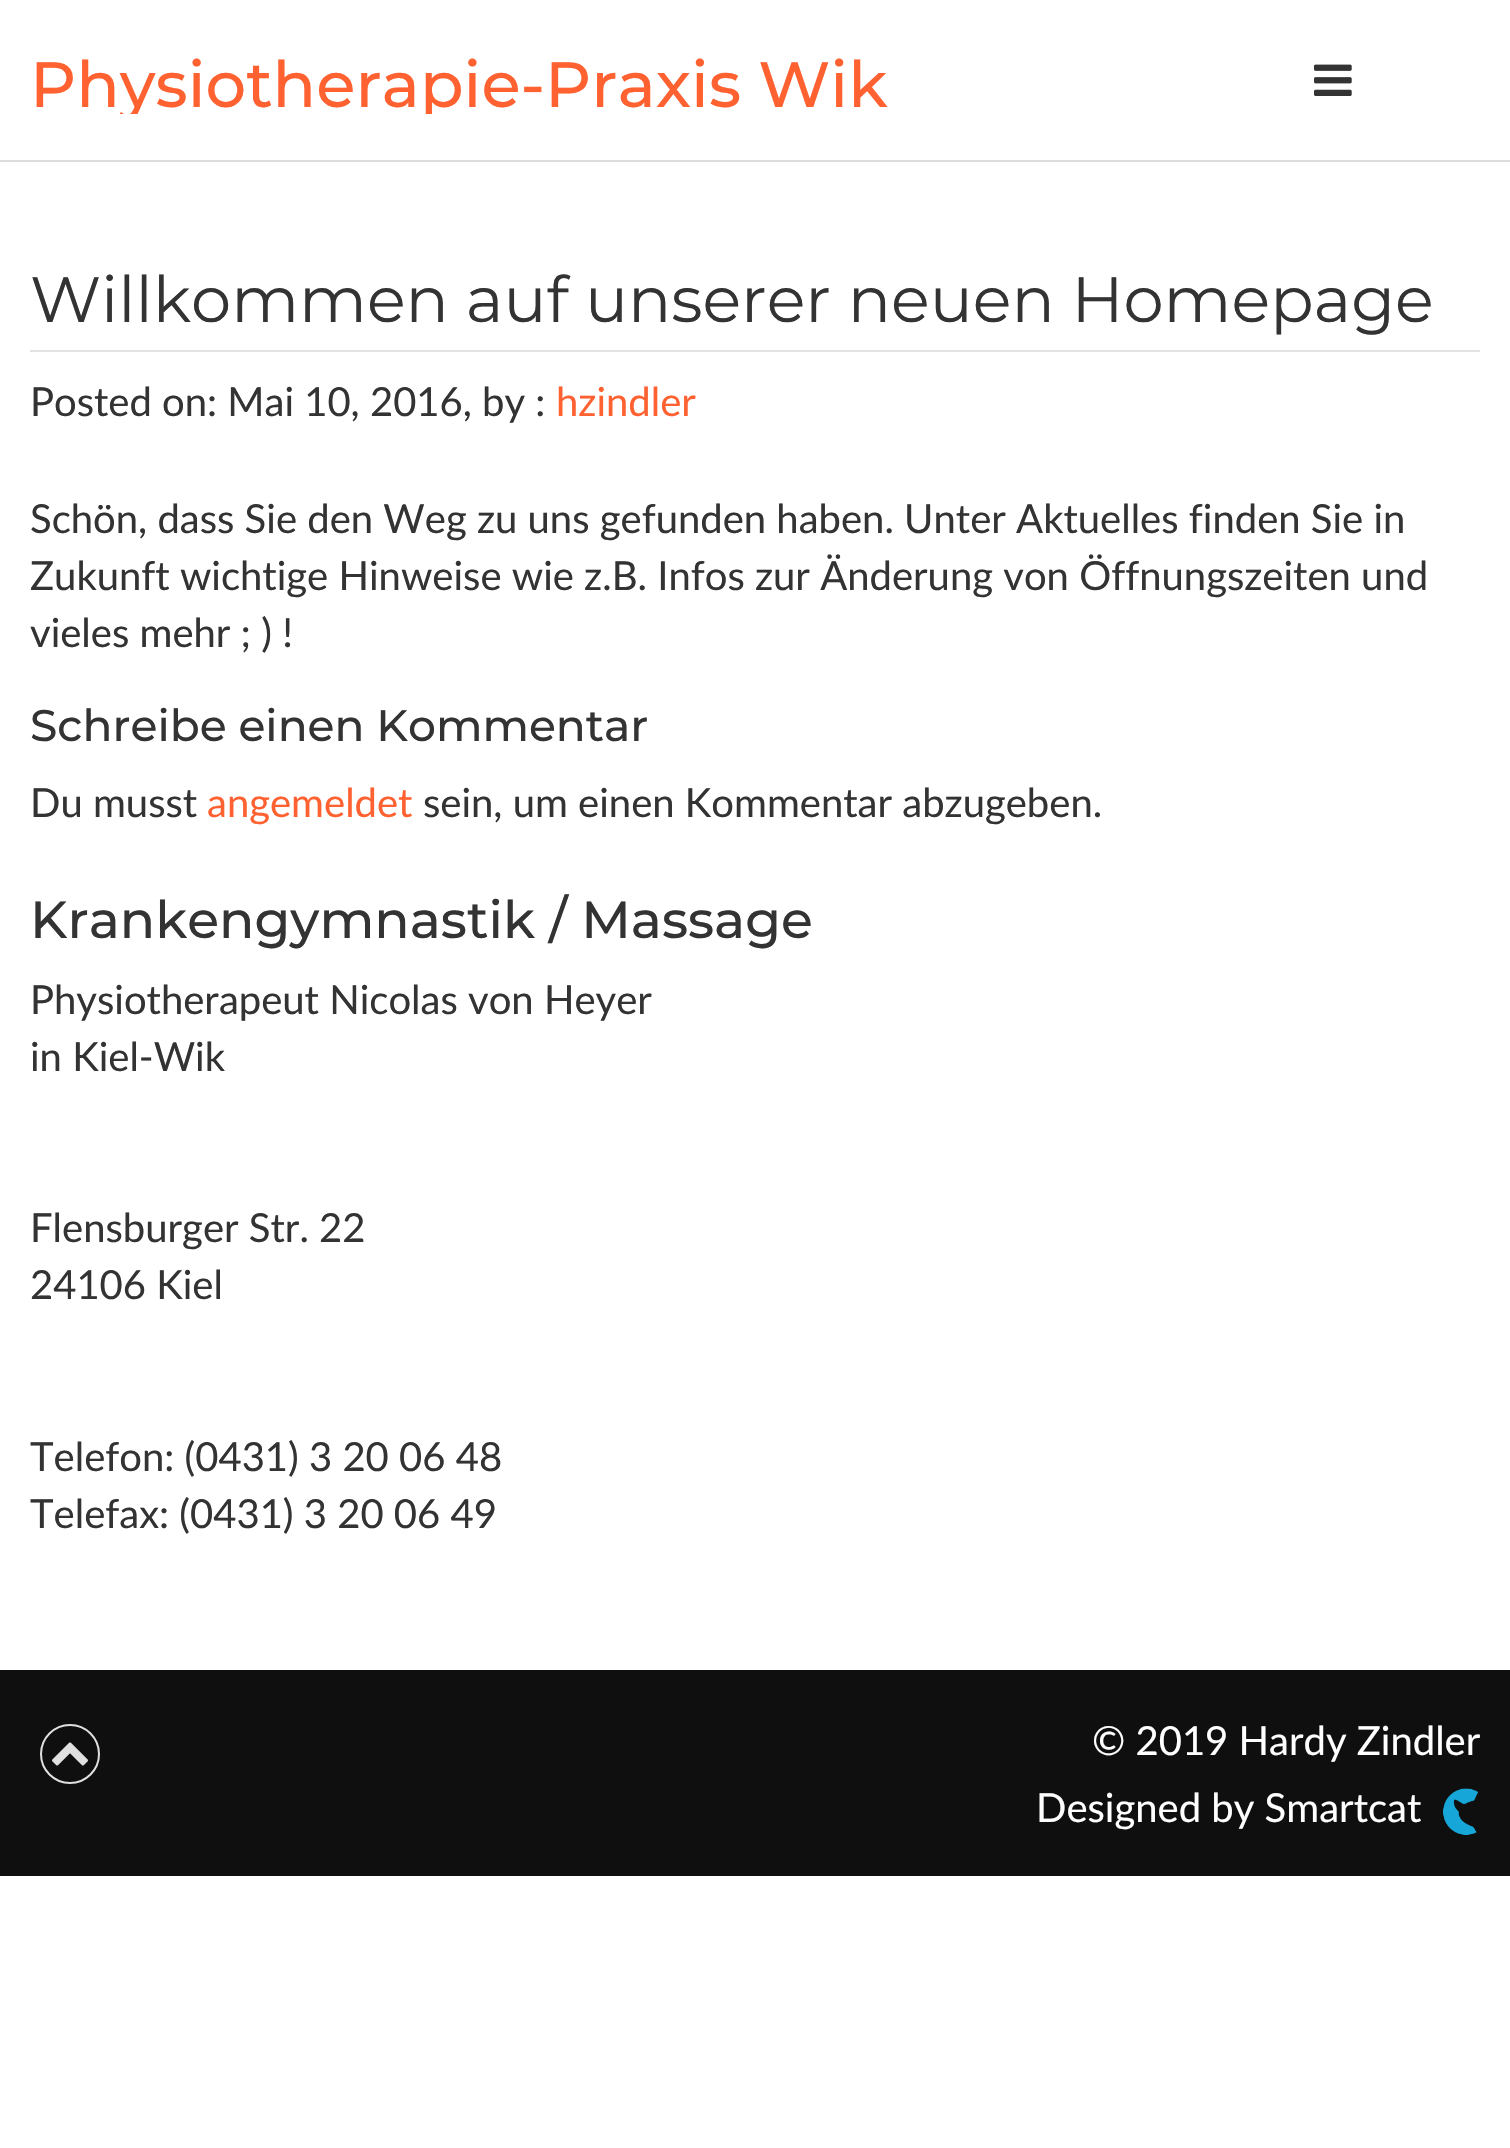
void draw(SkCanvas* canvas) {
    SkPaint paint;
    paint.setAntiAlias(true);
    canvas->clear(0xFFFFFFFF);
    paint.setColor(0xFFDDDDDD);
    canvas->drawRect(SkRect::MakeXYWH(0, 160, 1510, 2), paint);
    canvas->save();
    canvas->clipRect(SkRect::MakeXYWH(30, 46, 900, 68));
    SkFont font1(fontMgr->matchFamilyStyle("Montserrat", SkFontStyle(500, SkFontStyle::kNormal_Width, SkFontStyle::kUpright_Slant)), 64);
    font1.setSubpixel(true);
    paint.setColor(0xFFFF6131);
    canvas->drawString("Physiotherapie-Praxis Wik", 30, 107, font1, paint);
    canvas->restore();
    canvas->drawImageRect(SkImages::DeferredFromEncodedData(SkData::MakeFromFileName("img1.png")), SkRect::MakeXYWH(1314, 64, 38, 32), SkSamplingOptions());
    paint.setColor(0xFFE4E3E3);
    canvas->drawRect(SkRect::MakeXYWH(30, 350, 1450, 2), paint);
    SkFont font2(fontMgr->matchFamilyStyle("Montserrat", SkFontStyle::Normal()), 64);
    font2.setSubpixel(true);
    paint.setColor(0xFF333333);
    canvas->drawString("Willkommen auf unserer neuen Homepage", 30, 322, font2, paint);
    SkFont font3(fontMgr->matchFamilyStyle("Lato", SkFontStyle::Normal()), 40);
    font3.setSubpixel(true);
    canvas->drawString("Posted on: Mai 10, 2016, by :", 30, 416, font3, paint);
    paint.setColor(0xFFFF6131);
    canvas->drawString("hzindler", 556, 416, font3, paint);
    paint.setColor(0xFF333333);
    canvas->drawString("Schön, dass Sie den Weg zu uns gefunden haben. Unter Aktuelles finden Sie in", 30, 533, font3, paint);
    canvas->drawString("Zukunft wichtige Hinweise wie z.B. Infos zur Änderung von Öffnungszeiten und", 30, 590, font3, paint);
    canvas->drawString("vieles mehr ; ) !", 30, 647, font3, paint);
    SkFont font4(fontMgr->matchFamilyStyle("Montserrat", SkFontStyle(500, SkFontStyle::kNormal_Width, SkFontStyle::kUpright_Slant)), 44);
    font4.setSubpixel(true);
    canvas->drawString("Schreibe einen Kommentar", 30, 741, font4, paint);
    canvas->drawString("Du musst", 30, 817, font3, paint);
    paint.setColor(0xFFFF6131);
    canvas->drawString("angemeldet", 207, 817, font3, paint);
    paint.setColor(0xFF333333);
    canvas->drawString("sein, um einen Kommentar abzugeben.", 423, 817, font3, paint);
    SkFont font5(fontMgr->matchFamilyStyle("Montserrat", SkFontStyle(500, SkFontStyle::kNormal_Width, SkFontStyle::kUpright_Slant)), 52);
    font5.setSubpixel(true);
    canvas->drawString("Krankengymnastik / Massage", 30, 938, font5, paint);
    canvas->drawString("Physiotherapeut Nicolas von Heyer", 30, 1014, font3, paint);
    canvas->drawString("in Kiel-Wik", 30, 1071, font3, paint);
    canvas->drawString("Flensburger Str. 22", 30, 1242, font3, paint);
    canvas->drawString("24106 Kiel", 30, 1299, font3, paint);
    canvas->drawString("Telefon: (0431) 3 20 06 48", 30, 1471, font3, paint);
    canvas->drawString("Telefax: (0431) 3 20 06 49", 30, 1528, font3, paint);
    paint.setColor(0xFF0F0F0F);
    canvas->drawRect(SkRect::MakeXYWH(0, 1670, 1510, 206), paint);
    paint.setStyle(SkPaint::kStroke_Style);
    paint.setStrokeWidth(2);
    paint.setColor(0xFFE0E0E0);
    canvas->drawCircle(70, 1754, 29, paint);
    canvas->drawImageRect(SkImages::DeferredFromEncodedData(SkData::MakeFromFileName("img2.png")), SkRect::MakeXYWH(52, 1742, 36, 24), SkSamplingOptions());
    paint.setStyle(SkPaint::kFill_Style);
    paint.setColor(0xFFFFFFFF);
    canvas->drawString("© 2019 Hardy Zindler", 1092, 1755, font3, paint);
    canvas->drawString("Designed by Smartcat", 1036, 1822, font3, paint);
    canvas->drawImageRect(SkImages::DeferredFromEncodedData(SkData::MakeFromFileName("img3.png")), SkRect::MakeXYWH(1443, 1788, 36, 47), SkSamplingOptions());
}
